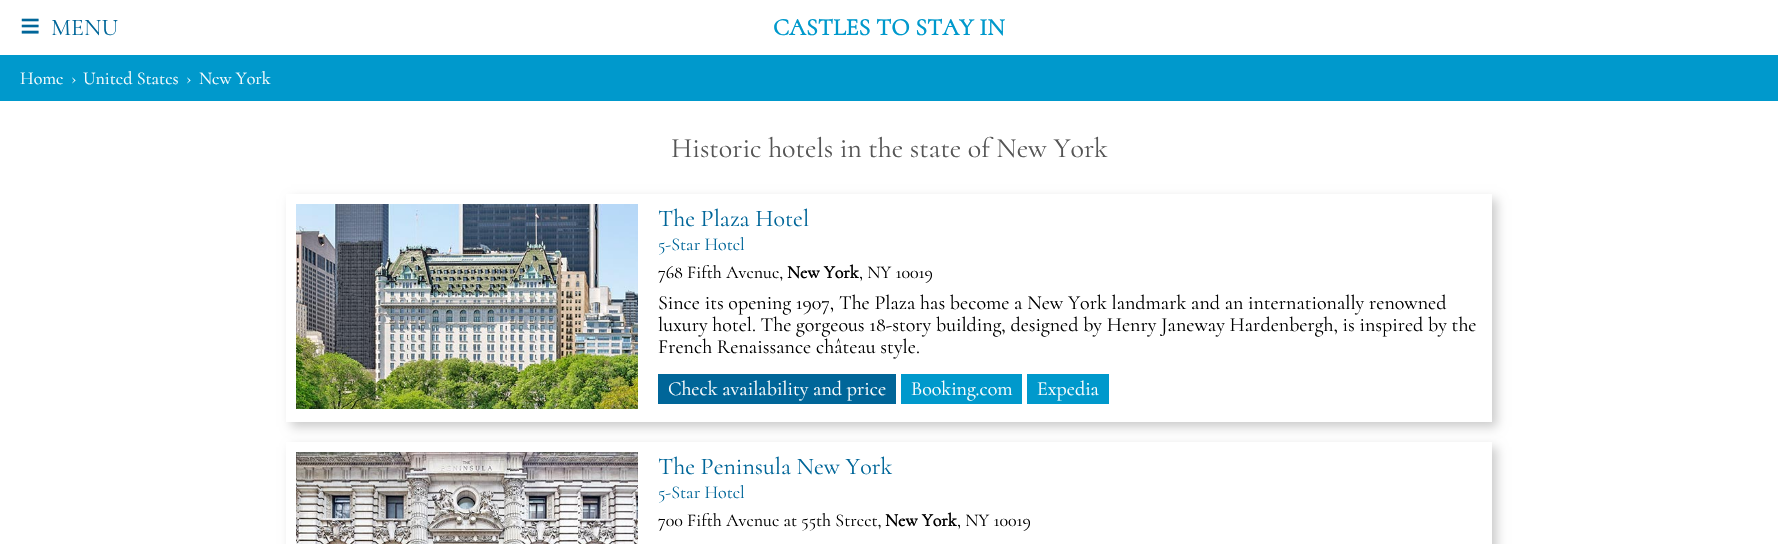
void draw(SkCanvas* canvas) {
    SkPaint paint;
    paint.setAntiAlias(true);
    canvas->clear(0xFFFFFFFF);
    SkFont font1(fontMgr->matchFamilyStyle("Liberation Serif", SkFontStyle::Bold()), 36);
    font1.setSubpixel(true);
    paint.setColor(0xFF006699);
    canvas->drawString("≡", 20, 38, font1, paint);
    SkFont font2(fontMgr->matchFamilyStyle("Cormorant", SkFontStyle(300, SkFontStyle::kNormal_Width, SkFontStyle::kUpright_Slant)), 24);
    font2.setSubpixel(true);
    canvas->drawString("MENU", 51, 35, font2, paint);
    SkFont font3(fontMgr->matchFamilyStyle("Cormorant", SkFontStyle::Bold()), 24);
    font3.setSubpixel(true);
    paint.setColor(0xFF0099CC);
    canvas->drawString("CASTLES TO STAY IN", 773, 35, font3, paint);
    canvas->drawRect(SkRect::MakeXYWH(0, 55, 1778, 46), paint);
    SkFont font4(fontMgr->matchFamilyStyle("Cormorant", SkFontStyle(300, SkFontStyle::kNormal_Width, SkFontStyle::kUpright_Slant)), 18);
    font4.setSubpixel(true);
    paint.setColor(0xFFFFFFFF);
    canvas->drawString("Home", 20, 84, font4, paint);
    canvas->drawString("›", 71, 84, font4, paint);
    canvas->drawString("United States", 83, 84, font4, paint);
    canvas->drawString("›", 186, 84, font4, paint);
    canvas->drawString("New York", 199, 84, font4, paint);
    SkFont font5(fontMgr->matchFamilyStyle("Cormorant", SkFontStyle(300, SkFontStyle::kNormal_Width, SkFontStyle::kUpright_Slant)), 28);
    font5.setSubpixel(true);
    paint.setColor(0xFF555555);
    canvas->drawString("Historic hotels in the state of New York", 671, 157, font5, paint);
    canvas->save();
    canvas->clipPath(SkPathBuilder(SkPathFillType::kEvenOdd).moveTo(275, 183).lineTo(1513, 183).lineTo(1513, 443).lineTo(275, 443).close().moveTo(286, 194).lineTo(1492, 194).lineTo(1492, 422).lineTo(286, 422).close().detach(), true);
    paint.setColor(0x33000000);
    paint.setMaskFilter(SkMaskFilter::MakeBlur(kNormal_SkBlurStyle, 5));
    canvas->drawRect(SkRect::MakeXYWH(291, 199, 1206, 228), paint);
    paint.setMaskFilter(nullptr);
    canvas->restore();
    canvas->drawImageRect(SkImages::DeferredFromEncodedData(SkData::MakeFromFileName("img1.png")), SkRect::MakeXYWH(296, 204, 342, 205), SkSamplingOptions());
    paint.setColor(0xFF006699);
    canvas->drawString("The Plaza Hotel", 658, 226, font2, paint);
    canvas->drawString("5-Star Hotel", 658, 250, font4, paint);
    paint.setColor(0xFF000000);
    canvas->drawString("768 Fifth Avenue,", 658, 278, font4, paint);
    SkFont font6(fontMgr->matchFamilyStyle("Cormorant", SkFontStyle::Bold()), 18);
    font6.setSubpixel(true);
    canvas->drawString("New York", 787, 278, font6, paint);
    canvas->drawString(", NY 10019", 859, 278, font4, paint);
    SkFont font7(fontMgr->matchFamilyStyle("Cormorant", SkFontStyle(300, SkFontStyle::kNormal_Width, SkFontStyle::kUpright_Slant)), 20);
    font7.setSubpixel(true);
    canvas->drawString("Since its opening 1907, The Plaza has become a New York landmark and an internationally renowned", 658, 309, font7, paint);
    canvas->drawString("luxury hotel. The gorgeous 18-story building, designed by Henry Janeway Hardenbergh, is inspired by the", 658, 331, font7, paint);
    canvas->drawString("French Renaissance château style.", 658, 353, font7, paint);
    paint.setColor(0xFF006699);
    canvas->drawRect(SkRect::MakeXYWH(658, 374, 238, 30), paint);
    paint.setColor(0xFFFFFFFF);
    canvas->drawString("Check availability and price", 668, 395, font7, paint);
    paint.setColor(0xFF0099CC);
    canvas->drawRect(SkRect::MakeXYWH(901, 374, 121, 30), paint);
    paint.setColor(0xFFFFFFFF);
    canvas->drawString("Booking.com", 911, 395, font7, paint);
    paint.setColor(0xFF0099CC);
    canvas->drawRect(SkRect::MakeXYWH(1027, 374, 82, 30), paint);
    paint.setColor(0xFFFFFFFF);
    canvas->drawString("Expedia", 1037, 395, font7, paint);
    canvas->save();
    canvas->clipPath(SkPathBuilder(SkPathFillType::kEvenOdd).moveTo(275, 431).lineTo(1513, 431).lineTo(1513, 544).lineTo(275, 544).close().moveTo(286, 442).lineTo(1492, 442).lineTo(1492, 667).lineTo(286, 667).close().detach(), true);
    paint.setColor(0x33000000);
    paint.setMaskFilter(SkMaskFilter::MakeBlur(kNormal_SkBlurStyle, 5));
    canvas->drawRect(SkRect::MakeXYWH(291, 447, 1206, 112), paint);
    paint.setMaskFilter(nullptr);
    canvas->restore();
    canvas->drawImageRect(SkImages::DeferredFromEncodedData(SkData::MakeFromFileName("img2.png")), SkRect::MakeXYWH(296, 452, 342, 92), SkSamplingOptions());
    paint.setColor(0xFF006699);
    canvas->drawString("The Peninsula New York", 658, 474, font2, paint);
    canvas->drawString("5-Star Hotel", 658, 498, font4, paint);
    paint.setColor(0xFF000000);
    canvas->drawString("700 Fifth Avenue at 55th Street,", 658, 526, font4, paint);
    canvas->drawString("New York", 885, 526, font6, paint);
    canvas->drawString(", NY 10019", 957, 526, font4, paint);
}
